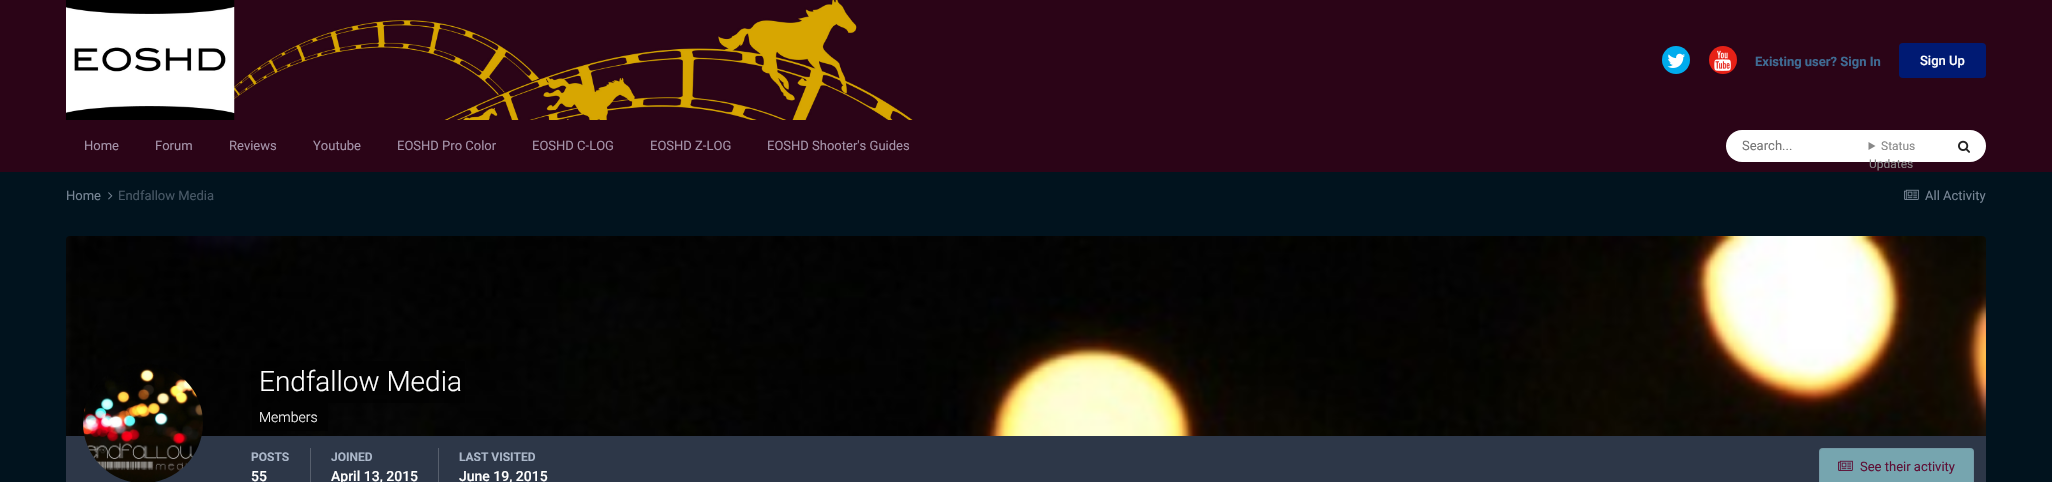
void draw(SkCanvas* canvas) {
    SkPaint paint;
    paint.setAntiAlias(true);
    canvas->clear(0xFF01131E);
    paint.setColor(0xFF2B0417);
    canvas->drawRect(SkRect::MakeXYWH(0, 0, 2052, 172), paint);
    canvas->drawImageRect(SkImages::DeferredFromEncodedData(SkData::MakeFromFileName("img1.png")), SkRect::MakeXYWH(66, 0, 847, 120), SkSamplingOptions());
    paint.setColor(0xFF00ACED);
    canvas->drawCircle(1676, 60, 14, paint);
    canvas->drawImageRect(SkImages::DeferredFromEncodedData(SkData::MakeFromFileName("img2.png")), SkRect::MakeXYWH(1667, 53, 18, 15), SkSamplingOptions());
    paint.setColor(0xFFE62117);
    canvas->drawCircle(1723, 60, 14, paint);
    canvas->drawImageRect(SkImages::DeferredFromEncodedData(SkData::MakeFromFileName("img3.png")), SkRect::MakeXYWH(1714, 50, 17, 21), SkSamplingOptions());
    SkFont font1(fontMgr->matchFamilyStyle("Roboto", SkFontStyle::Bold()), 13);
    font1.setSubpixel(true);
    paint.setColor(0xFF3F6C94);
    canvas->drawString("Existing user? Sign In", 1755, 66, font1, paint);
    paint.setColor(0xFF001A73);
    canvas->drawRoundRect(SkRect::MakeXYWH(1899, 43, 87, 35), 4, 4, paint);
    SkFont font2(fontMgr->matchFamilyStyle("Roboto", SkFontStyle(500, SkFontStyle::kNormal_Width, SkFontStyle::kUpright_Slant)), 13);
    font2.setSubpixel(true);
    paint.setColor(0xFFFFFFFF);
    canvas->drawString("Sign Up", 1920, 65, font2, paint);
    SkFont font3(fontMgr->matchFamilyStyle("Roboto", SkFontStyle::Normal()), 13);
    font3.setSubpixel(true);
    paint.setColor(0xFFA594AA);
    canvas->drawString("Home", 84, 150, font3, paint);
    canvas->drawString("Forum", 155, 150, font3, paint);
    canvas->drawString("Reviews", 229, 150, font3, paint);
    canvas->drawString("Youtube", 313, 150, font3, paint);
    canvas->drawString("EOSHD Pro Color", 397, 150, font3, paint);
    canvas->drawString("EOSHD C-LOG", 532, 150, font3, paint);
    canvas->drawString("EOSHD Z-LOG", 650, 150, font3, paint);
    canvas->drawString("EOSHD Shooter's Guides", 767, 150, font3, paint);
    paint.setColor(0xFFFFFFFF);
    canvas->drawRoundRect(SkRect::MakeXYWH(1726, 130, 260, 32), 16, 16, paint);
    paint.setColor(0xFF757575);
    canvas->drawString("Search...", 1742, 150, font3, paint);
    paint.setColor(0xFF888888);
    canvas->drawPath(SkPathBuilder().moveTo(1868.5f, 142).lineTo(1875.5f, 146).lineTo(1868.5f, 150).close().detach(), paint);
    SkFont font4(fontMgr->matchFamilyStyle("Roboto", SkFontStyle::Normal()), 12);
    font4.setSubpixel(true);
    canvas->drawString("Status", 1881, 150, font4, paint);
    canvas->drawString("Updates", 1869, 168, font4, paint);
    canvas->drawImageRect(SkImages::DeferredFromEncodedData(SkData::MakeFromFileName("img4.png")), SkRect::MakeXYWH(1958, 140, 12, 13), SkSamplingOptions());
    paint.setColor(0xFF788696);
    canvas->drawString("Home", 66, 200, font3, paint);
    canvas->drawImageRect(SkImages::DeferredFromEncodedData(SkData::MakeFromFileName("img5.png")), SkRect::MakeXYWH(108, 192, 5, 8), SkSamplingOptions());
    paint.setColor(0xFF485866);
    canvas->drawString("Endfallow Media", 118, 200, font3, paint);
    canvas->drawImageRect(SkImages::DeferredFromEncodedData(SkData::MakeFromFileName("img6.png")), SkRect::MakeXYWH(1904, 189, 15, 11), SkSamplingOptions());
    paint.setColor(0xFF788696);
    canvas->drawString("All Activity", 1925, 200, font3, paint);
    canvas->drawImageRect(SkImages::DeferredFromEncodedData(SkData::MakeFromFileName("img7.png")), SkRect::MakeXYWH(66, 236, 1920, 200), SkSamplingOptions());
    paint.setColor(0xFF2D3748);
    canvas->drawRect(SkRect::MakeXYWH(66, 436, 1920, 46), paint);
    canvas->drawImageRect(SkImages::DeferredFromEncodedData(SkData::MakeFromFileName("img8.png")), SkRect::MakeXYWH(83, 363, 120, 119), SkSamplingOptions());
    paint.setColor(0x99000000);
    canvas->drawRect(SkRect::MakeXYWH(251, 361, 214, 42), paint);
    SkFont font5(fontMgr->matchFamilyStyle("Roboto", SkFontStyle(300, SkFontStyle::kNormal_Width, SkFontStyle::kUpright_Slant)), 28);
    font5.setSubpixel(true);
    paint.setColor(0xFFFFFFFF);
    canvas->drawString("Endfallow Media", 259, 391, font5, paint);
    paint.setColor(0x99000000);
    canvas->drawRect(SkRect::MakeXYWH(252, 403, 76, 28), paint);
    SkFont font6(fontMgr->matchFamilyStyle("Roboto", SkFontStyle(300, SkFontStyle::kNormal_Width, SkFontStyle::kUpright_Slant)), 14);
    font6.setSubpixel(true);
    paint.setColor(0xFFFFFFFF);
    canvas->drawString("Members", 259, 422, font6, paint);
    paint.setColor(0xFF575F6D);
    canvas->drawRect(SkRect::MakeXYWH(310, 448, 1, 34), paint);
    SkFont font7(fontMgr->matchFamilyStyle("Roboto", SkFontStyle::Bold()), 12);
    font7.setSubpixel(true);
    paint.setColor(0xFFABB7C9);
    canvas->drawString("POSTS", 251, 461, font7, paint);
    SkFont font8(fontMgr->matchFamilyStyle("Roboto", SkFontStyle(500, SkFontStyle::kNormal_Width, SkFontStyle::kUpright_Slant)), 14);
    font8.setSubpixel(true);
    paint.setColor(0xFFFFFFFF);
    canvas->drawString("55", 251, 481, font8, paint);
    paint.setColor(0xFF575F6D);
    canvas->drawRect(SkRect::MakeXYWH(438, 448, 1, 34), paint);
    paint.setColor(0xFFABB7C9);
    canvas->drawString("JOINED", 331, 461, font7, paint);
    paint.setColor(0xFFFFFFFF);
    canvas->drawString("April 13, 2015", 331, 481, font8, paint);
    paint.setColor(0xFFABB7C9);
    canvas->drawString("LAST VISITED", 459, 461, font7, paint);
    paint.setColor(0xFFFFFFFF);
    canvas->drawString("June 19, 2015", 459, 481, font8, paint);
    paint.setColor(0xFF76A5AF);
    canvas->drawRoundRect(SkRect::MakeXYWH(1819, 448, 155, 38), 4, 4, paint);
    paint.setStyle(SkPaint::kStroke_Style);
    paint.setStrokeWidth(1);
    paint.setColor(0x125E1036);
    canvas->drawRoundRect(SkRect::MakeXYWH(1819.5f, 448.5f, 154, 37), 3.5f, 3.5f, paint);
    canvas->drawImageRect(SkImages::DeferredFromEncodedData(SkData::MakeFromFileName("img9.png")), SkRect::MakeXYWH(1838, 460, 15, 11), SkSamplingOptions());
    paint.setStyle(SkPaint::kFill_Style);
    paint.setColor(0xFF5E1036);
    canvas->drawString("See their activity", 1860, 471, font3, paint);
}
